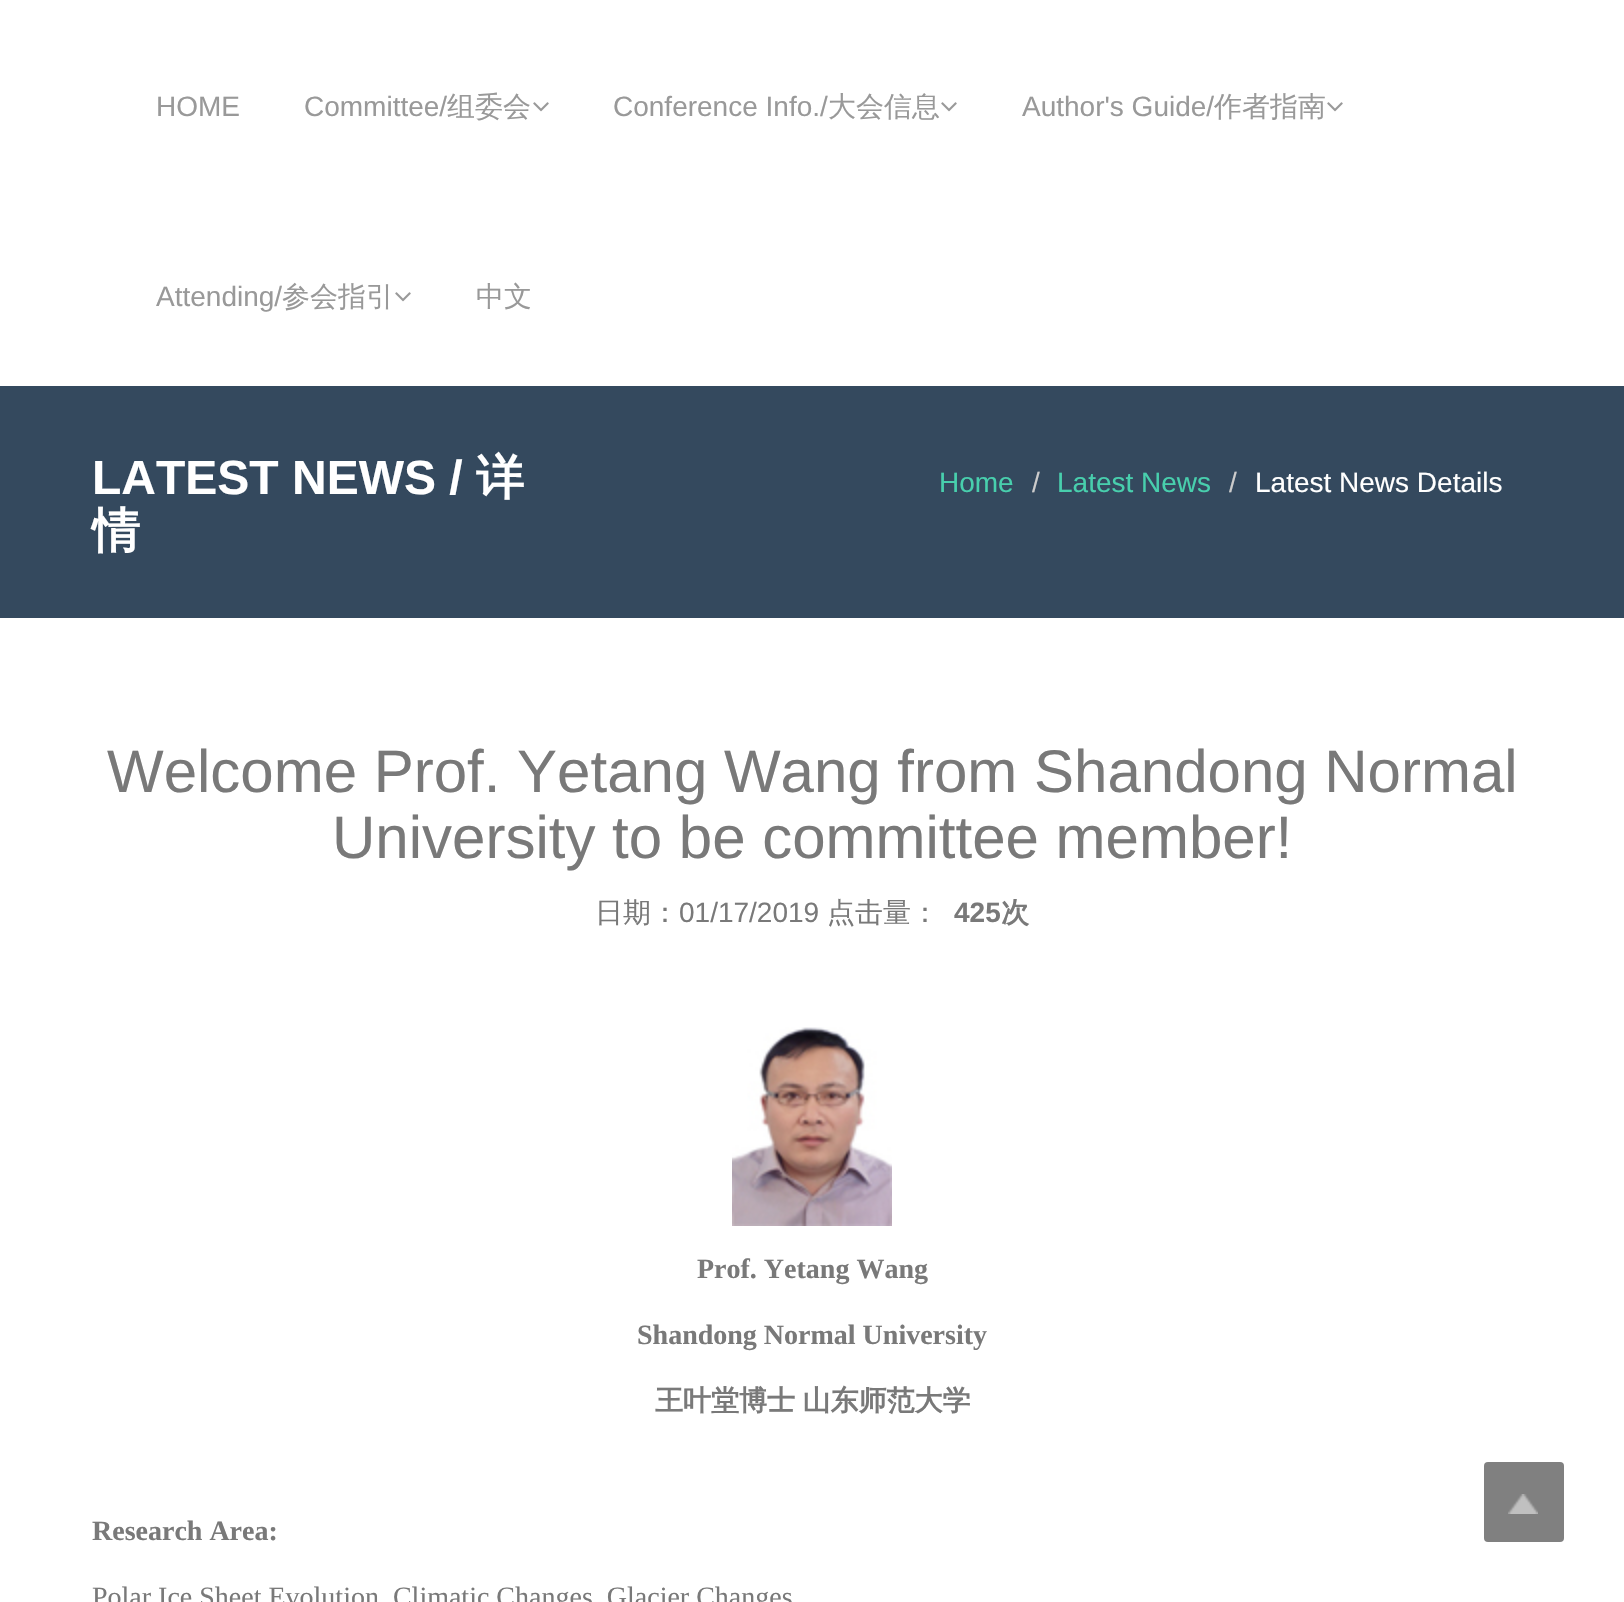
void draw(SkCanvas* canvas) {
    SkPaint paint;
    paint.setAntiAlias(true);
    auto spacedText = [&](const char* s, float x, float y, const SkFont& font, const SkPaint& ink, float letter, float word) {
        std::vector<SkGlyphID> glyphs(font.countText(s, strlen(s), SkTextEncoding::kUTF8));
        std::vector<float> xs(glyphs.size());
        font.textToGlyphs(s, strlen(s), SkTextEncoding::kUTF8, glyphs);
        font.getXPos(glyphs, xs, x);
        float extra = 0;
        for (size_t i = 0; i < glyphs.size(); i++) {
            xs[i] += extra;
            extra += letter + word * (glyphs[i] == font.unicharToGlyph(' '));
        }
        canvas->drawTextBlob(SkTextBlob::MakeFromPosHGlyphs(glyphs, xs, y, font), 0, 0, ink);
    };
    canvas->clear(0xFFFFFFFF);
    SkFont font1(fontMgr->matchFamilyStyle("Liberation Sans", SkFontStyle::Normal()), 28);
    font1.setSubpixel(true);
    paint.setColor(0xFF999999);
    canvas->drawString("HOME", 156, 116, font1, paint);
    canvas->drawString("Committee/", 304, 116, font1, paint);
    SkFont font2(fontMgr->matchFamilyStyle("WenQuanYi Zen Hei", SkFontStyle(500, SkFontStyle::kNormal_Width, SkFontStyle::kUpright_Slant)), 28);
    font2.setSubpixel(true);
    canvas->drawString("组委会", 447, 116, font2, paint);
    canvas->drawImageRect(SkImages::DeferredFromEncodedData(SkData::MakeFromFileName("img1.png")), SkRect::MakeXYWH(533, 102, 16, 10), SkSamplingOptions());
    canvas->drawString("Conference Info./", 613, 116, font1, paint);
    canvas->drawString("大会信息", 828, 116, font2, paint);
    canvas->drawImageRect(SkImages::DeferredFromEncodedData(SkData::MakeFromFileName("img1.png")), SkRect::MakeXYWH(941, 102, 16, 10), SkSamplingOptions());
    canvas->drawString("Author's Guide/", 1022, 116, font1, paint);
    canvas->drawString("作者指南", 1214, 116, font2, paint);
    canvas->drawImageRect(SkImages::DeferredFromEncodedData(SkData::MakeFromFileName("img1.png")), SkRect::MakeXYWH(1327, 102, 16, 10), SkSamplingOptions());
    canvas->drawString("Attending/", 156, 306, font1, paint);
    canvas->drawString("参会指引", 282, 306, font2, paint);
    canvas->drawImageRect(SkImages::DeferredFromEncodedData(SkData::MakeFromFileName("img1.png")), SkRect::MakeXYWH(395, 292, 16, 10), SkSamplingOptions());
    canvas->drawString("中文", 476, 306, font2, paint);
    paint.setColor(0xFF34495E);
    canvas->drawRect(SkRect::MakeXYWH(0, 386, 1624, 232), paint);
    SkFont font3(fontMgr->matchFamilyStyle("Liberation Sans", SkFontStyle::Bold()), 48);
    font3.setSubpixel(true);
    paint.setColor(0xFFFFFFFF);
    canvas->drawString("LATEST NEWS /", 92, 494, font3, paint);
    SkFont font4(fontMgr->matchFamilyStyle("WenQuanYi Zen Hei", SkFontStyle::Bold()), 48);
    font4.setSubpixel(true);
    canvas->drawString("详", 476, 494, font4, paint);
    canvas->drawString("情", 92, 547, font4, paint);
    paint.setColor(0xFF48CFAD);
    canvas->drawString("Home", 939, 492, font1, paint);
    paint.setColor(0xFFCCCCCC);
    canvas->drawString("/", 1032, 492, font1, paint);
    paint.setColor(0xFF48CFAD);
    canvas->drawString("Latest News", 1057, 492, font1, paint);
    paint.setColor(0xFFCCCCCC);
    canvas->drawString("/", 1229, 492, font1, paint);
    paint.setColor(0xFFFFFFFF);
    canvas->drawString("Latest News Details", 1255, 492, font1, paint);
    SkFont font5(fontMgr->matchFamilyStyle("Liberation Sans", SkFontStyle::Normal()), 60);
    font5.setSubpixel(true);
    paint.setColor(0xFF797979);
    canvas->drawString("Welcome Prof. Yetang Wang from Shandong Normal", 107, 792, font5, paint);
    canvas->drawString("University to be committee member!", 332, 858, font5, paint);
    canvas->drawString("日期：", 595, 922, font2, paint);
    canvas->drawString("01/17/2019", 679, 922, font1, paint);
    canvas->drawString("点击量：", 827, 922, font2, paint);
    SkFont font6(fontMgr->matchFamilyStyle("Liberation Sans", SkFontStyle::Bold()), 28);
    font6.setSubpixel(true);
    canvas->drawString("425", 954, 922, font6, paint);
    SkFont font7(fontMgr->matchFamilyStyle("WenQuanYi Zen Hei", SkFontStyle::Bold()), 28);
    font7.setSubpixel(true);
    canvas->drawString("次", 1001, 922, font7, paint);
    canvas->drawImageRect(SkImages::DeferredFromEncodedData(SkData::MakeFromFileName("img2.png")), SkRect::MakeXYWH(732, 1027, 160, 199), SkSamplingOptions());
    SkFont font8(fontMgr->matchFamilyStyle("Liberation Serif", SkFontStyle::Bold()), 28);
    font8.setSubpixel(true);
    canvas->drawString("Prof. Yetang Wang", 697, 1278, font8, paint);
    canvas->drawString("Shandong Normal University", 637, 1344, font8, paint);
    spacedText("王叶堂博士 山东师范大学", 655, 1410, font7, paint, 0, -1);
    canvas->drawString("Research Area:", 92, 1540, font8, paint);
    SkFont font9(fontMgr->matchFamilyStyle("Liberation Serif", SkFontStyle::Normal()), 28);
    font9.setSubpixel(true);
    canvas->drawString("Polar Ice Sheet Evolution, Climatic Changes, Glacier Changes", 92, 1606, font9, paint);
    paint.setColor(0xFF808080);
    canvas->drawRoundRect(SkRect::MakeXYWH(1484, 1462, 80, 80), 4, 4, paint);
    canvas->drawImageRect(SkImages::DeferredFromEncodedData(SkData::MakeFromFileName("img3.png")), SkRect::MakeXYWH(1508, 1494, 30, 20), SkSamplingOptions());
}
